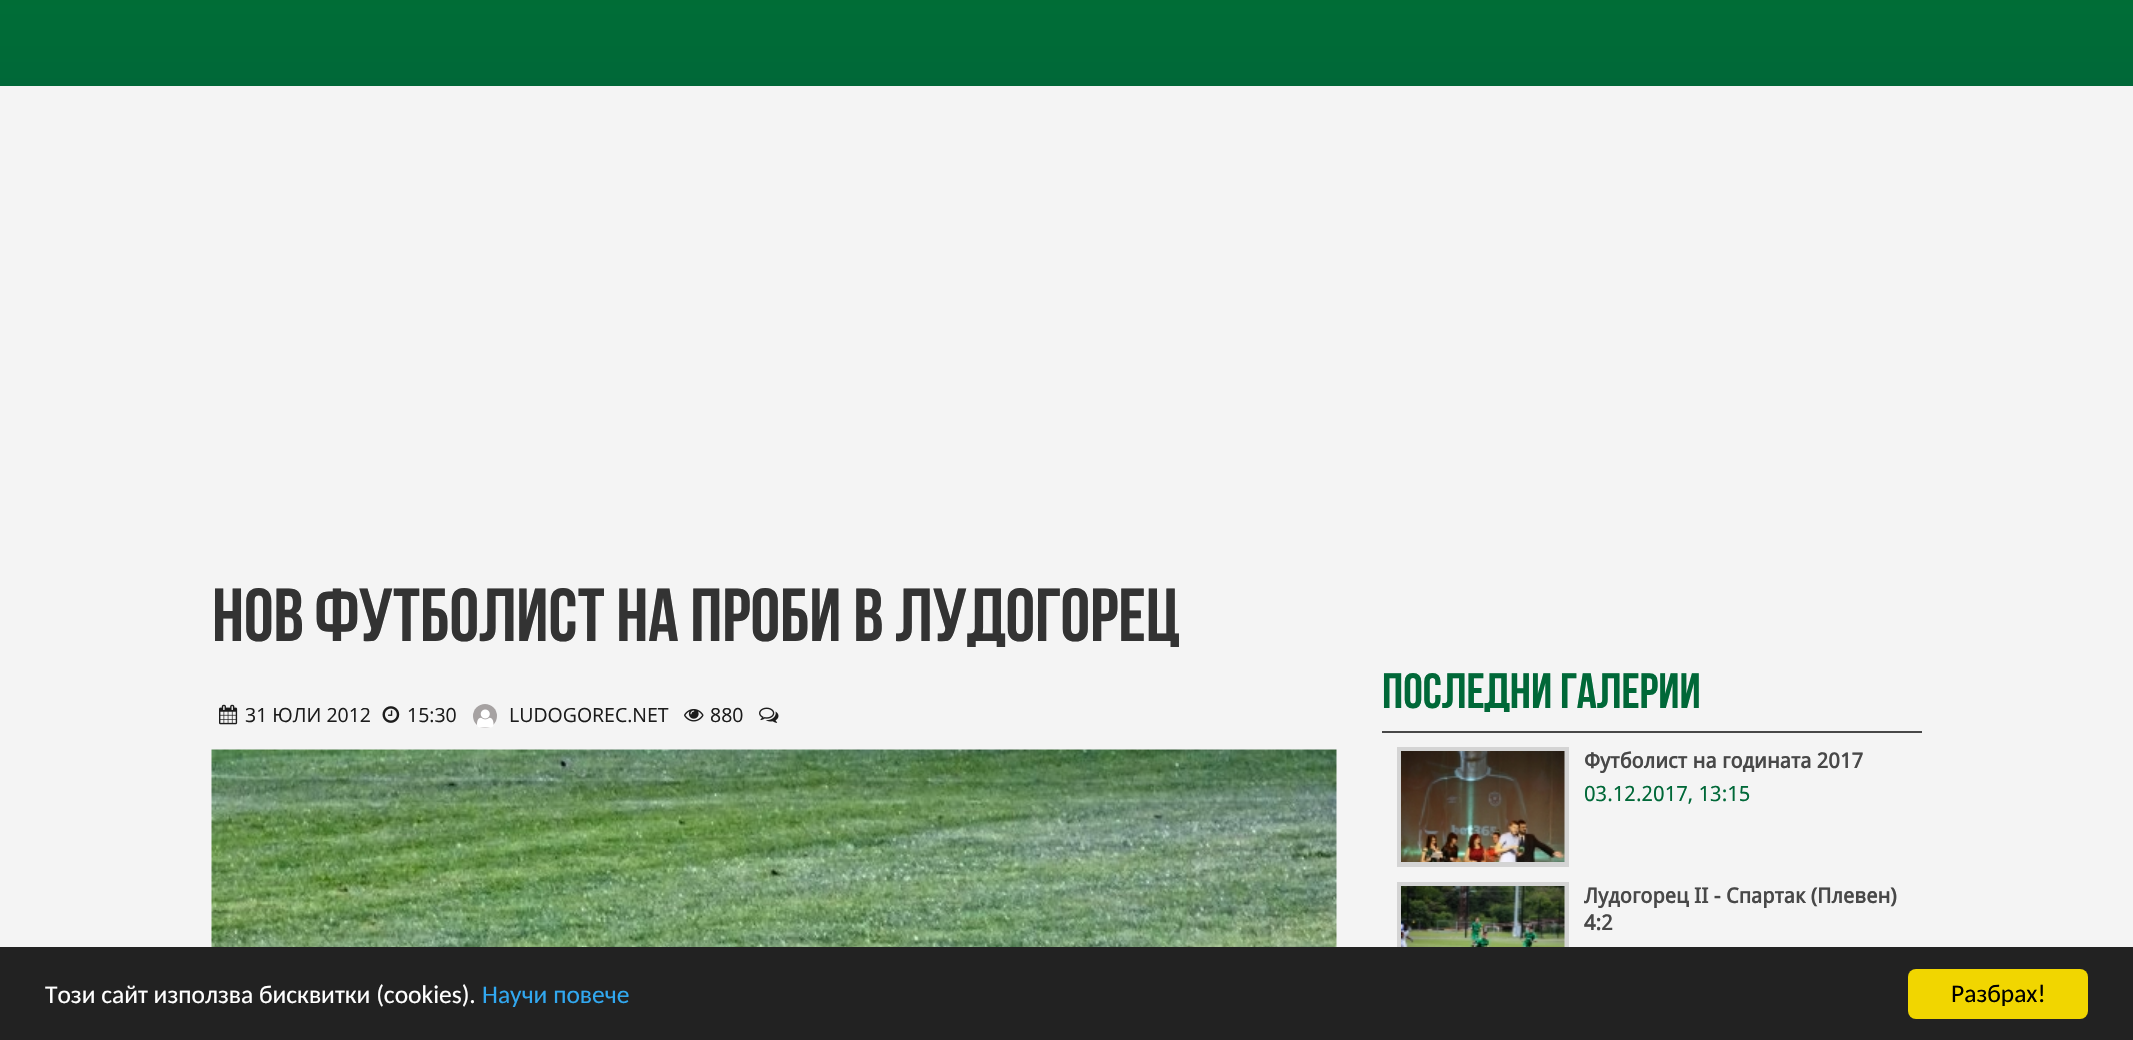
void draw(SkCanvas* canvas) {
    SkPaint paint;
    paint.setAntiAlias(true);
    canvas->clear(0xFFF4F4F4);
    {
        const SkColor colors[] = {0xFF007933, 0xFF006838};
        const float stops[] = {0, 1};
        const SkPoint ends[] = {{1067, -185}, {1067, 86}};
        paint.setShader(SkGradientShader::MakeLinear(ends, colors, stops, 2, SkTileMode::kClamp));
        paint.setAlpha(255);
    }
    canvas->drawRect(SkRect::MakeXYWH(0, 0, 2133, 86), paint);
    SkFont font1(fontMgr->matchFamilyStyle("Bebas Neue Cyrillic", SkFontStyle::Normal()), 75);
    font1.setSubpixel(true);
    paint.setShader(nullptr);
    paint.setColor(0xFF333333);
    canvas->drawString("Нов футболист на проби в Лудогорец", 212, 641, font1, paint);
    canvas->drawImageRect(SkImages::DeferredFromEncodedData(SkData::MakeFromFileName("img1.png")), SkRect::MakeXYWH(219, 704, 19, 21), SkSamplingOptions());
    SkFont font2(fontMgr->matchFamilyStyle("Open Sans", SkFontStyle::Normal()), 19.5f);
    font2.setSubpixel(true);
    paint.setColor(0xFF1C1C1C);
    canvas->drawString("31 ЮЛИ 2012", 245, 722, font2, paint);
    canvas->drawImageRect(SkImages::DeferredFromEncodedData(SkData::MakeFromFileName("img2.png")), SkRect::MakeXYWH(382, 706, 18, 17), SkSamplingOptions());
    canvas->drawString("15:30", 407, 722, font2, paint);
    paint.setColor(0xFFA6A2A2);
    canvas->drawCircle(485, 716, 12, paint);
    canvas->drawImageRect(SkImages::DeferredFromEncodedData(SkData::MakeFromFileName("img3.png")), SkRect::MakeXYWH(477, 709, 17, 19), SkSamplingOptions());
    paint.setColor(0xFF1C1C1C);
    canvas->drawString("LUDOGOREC.NET", 509, 722, font2, paint);
    canvas->drawImageRect(SkImages::DeferredFromEncodedData(SkData::MakeFromFileName("img4.png")), SkRect::MakeXYWH(684, 709, 20, 13), SkSamplingOptions());
    canvas->drawString("880", 710, 722, font2, paint);
    canvas->drawImageRect(SkImages::DeferredFromEncodedData(SkData::MakeFromFileName("img5.png")), SkRect::MakeXYWH(759, 707, 20, 16), SkSamplingOptions());
    canvas->drawImageRect(SkImages::DeferredFromEncodedData(SkData::MakeFromFileName("img6.png")), SkRect::MakeXYWH(211, 749, 1126, 198), SkSamplingOptions());
    paint.setColor(0xFF484848);
    canvas->drawRect(SkRect::MakeXYWH(1382, 731, 540, 2), paint);
    SkFont font3(fontMgr->matchFamilyStyle("Bebas Neue Cyrillic", SkFontStyle::Normal()), 49.5f);
    font3.setSubpixel(true);
    paint.setColor(0xFF006838);
    canvas->drawString("Последни галерии", 1382, 708, font3, paint);
    paint.setStyle(SkPaint::kStroke_Style);
    paint.setStrokeWidth(5);
    paint.setColor(0xFFD4D4D4);
    canvas->drawRect(SkRect::MakeXYWH(1399.5f, 749.5f, 167, 115), paint);
    canvas->drawImageRect(SkImages::DeferredFromEncodedData(SkData::MakeFromFileName("img7.png")), SkRect::MakeXYWH(1401, 751, 164, 111), SkSamplingOptions());
    SkFont font4(fontMgr->matchFamilyStyle("Droid Sans", SkFontStyle::Bold()), 21);
    font4.setSubpixel(true);
    paint.setStyle(SkPaint::kFill_Style);
    paint.setColor(0xFF484848);
    canvas->drawString("Футболист на годината 2017", 1584, 768, font4, paint);
    SkFont font5(fontMgr->matchFamilyStyle("Droid Sans", SkFontStyle::Normal()), 21);
    font5.setSubpixel(true);
    paint.setColor(0xFF006838);
    canvas->drawString("03.12.2017, 13:15", 1584, 801, font5, paint);
    paint.setStyle(SkPaint::kStroke_Style);
    paint.setColor(0xFFD4D4D4);
    canvas->drawRect(SkRect::MakeXYWH(1399.5f, 884.5f, 167, 115), paint);
    canvas->drawImageRect(SkImages::DeferredFromEncodedData(SkData::MakeFromFileName("img8.png")), SkRect::MakeXYWH(1401, 886, 164, 61), SkSamplingOptions());
    paint.setStyle(SkPaint::kFill_Style);
    paint.setColor(0xFF484848);
    canvas->drawString("Лудогорец II - Спартак (Плевен)", 1584, 903, font4, paint);
    canvas->drawString("4:2", 1584, 930, font4, paint);
    paint.setColor(0xFF222222);
    canvas->drawRect(SkRect::MakeXYWH(0, 947, 2133, 93), paint);
    SkFont font6(fontMgr->matchFamilyStyle("Carlito", SkFontStyle::Normal()), 25.5f);
    font6.setSubpixel(true);
    paint.setColor(0xFFFFFFFF);
    canvas->drawString("Този сайт използва бисквитки (cookies).", 45, 1003, font6, paint);
    paint.setColor(0xFF31A8F0);
    canvas->drawString("Научи повече", 482, 1003, font6, paint);
    paint.setColor(0xFFF1D600);
    canvas->drawRoundRect(SkRect::MakeXYWH(1908, 969, 180, 50), 8, 8, paint);
    paint.setColor(0xFF000000);
    canvas->drawString("Разбрах!", 1951, 1002, font6, paint);
}
